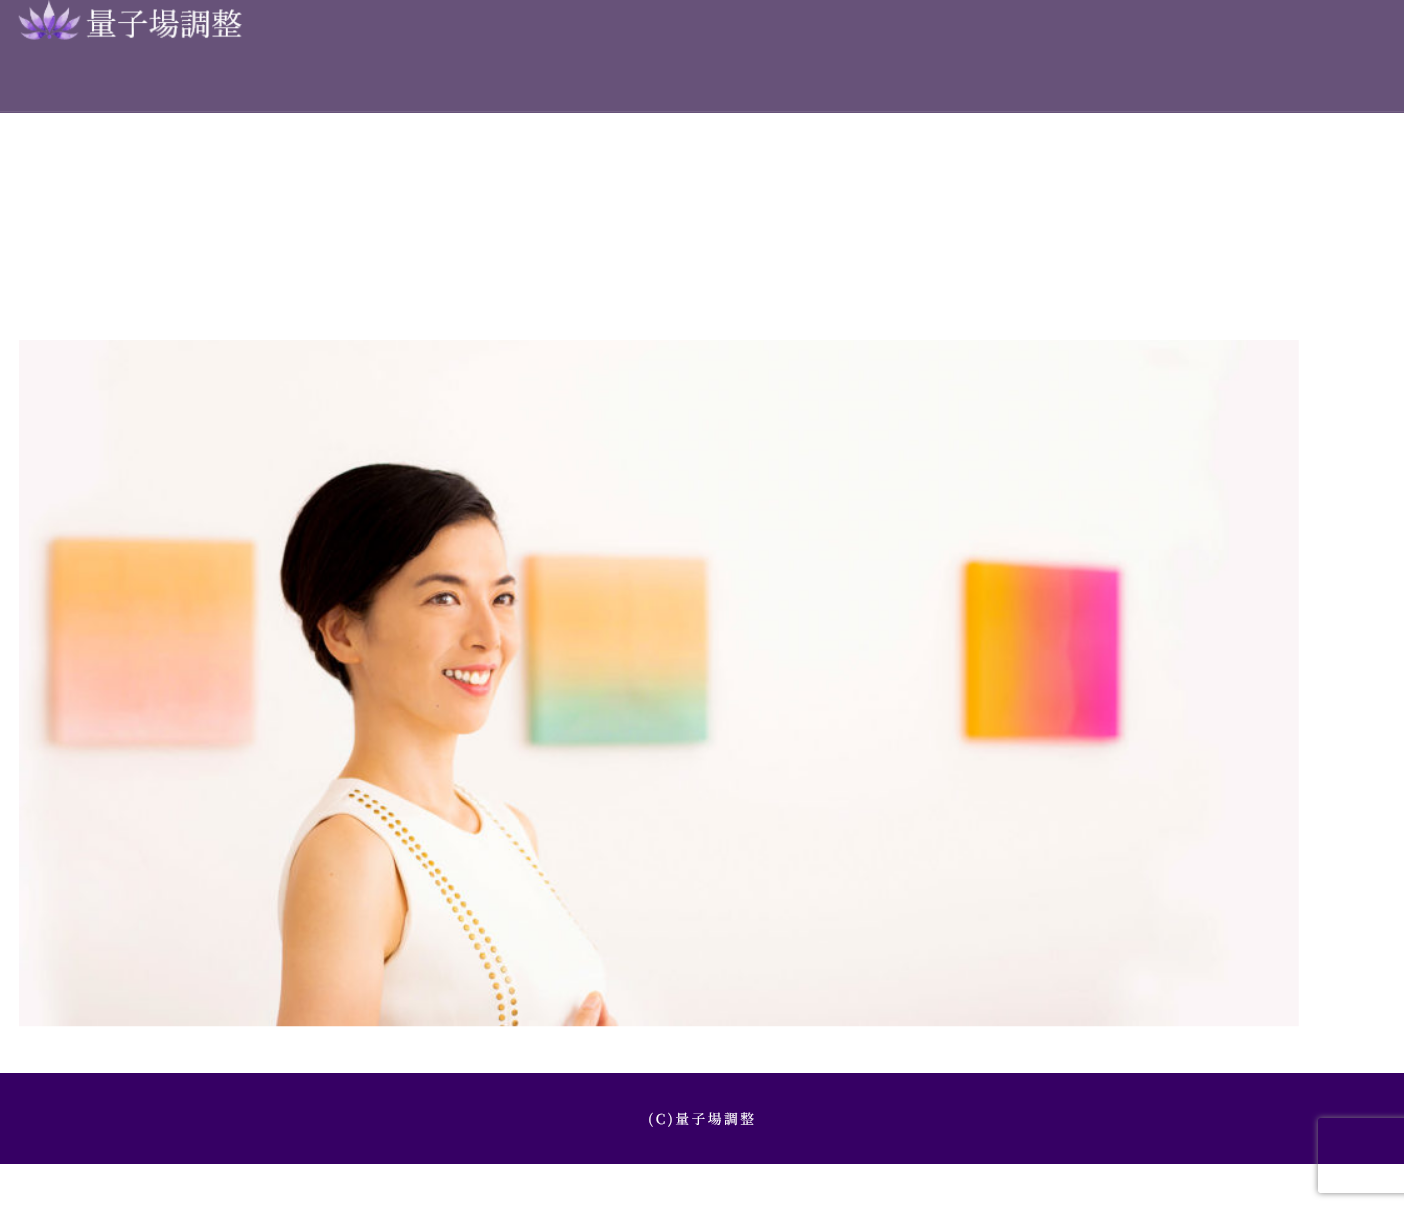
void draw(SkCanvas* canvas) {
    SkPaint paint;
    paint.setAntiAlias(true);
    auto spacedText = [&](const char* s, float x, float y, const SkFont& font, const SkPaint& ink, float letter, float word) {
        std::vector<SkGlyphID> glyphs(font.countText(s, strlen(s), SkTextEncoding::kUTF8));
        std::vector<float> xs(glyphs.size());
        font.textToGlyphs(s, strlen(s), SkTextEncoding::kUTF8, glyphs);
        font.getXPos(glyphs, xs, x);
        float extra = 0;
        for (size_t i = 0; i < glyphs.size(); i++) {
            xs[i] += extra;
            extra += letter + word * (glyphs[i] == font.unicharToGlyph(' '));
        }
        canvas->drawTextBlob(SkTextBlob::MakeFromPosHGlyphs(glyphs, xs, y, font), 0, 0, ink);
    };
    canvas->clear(0xFFFFFFFF);
    paint.setColor(0xFF675279);
    canvas->drawRect(SkRect::MakeXYWH(0, 0, 1404, 113), paint);
    paint.setColor(0xFF766386);
    canvas->drawRect(SkRect::MakeXYWH(0, 111, 1404, 1), paint);
    canvas->drawImageRect(SkImages::DeferredFromEncodedData(SkData::MakeFromFileName("img1.png")), SkRect::MakeXYWH(18, 0, 224, 40), SkSamplingOptions());
    canvas->drawImageRect(SkImages::DeferredFromEncodedData(SkData::MakeFromFileName("img2.png")), SkRect::MakeXYWH(19, 340, 1280, 687), SkSamplingOptions());
    paint.setColor(0xFF360064);
    canvas->drawRect(SkRect::MakeXYWH(0, 1073, 1404, 91), paint);
    SkFont font1(fontMgr->matchFamilyStyle("Noto Serif JP", SkFontStyle(500, SkFontStyle::kNormal_Width, SkFontStyle::kUpright_Slant)), 13.75f);
    font1.setSubpixel(true);
    paint.setColor(0xFFFFFFFF);
    spacedText("(C)量子場調整", 648, 1124, font1, paint, 2.5f, 0);
    canvas->save();
    canvas->clipPath(SkPathBuilder(SkPathFillType::kEvenOdd).moveTo(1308, 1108).lineTo(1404, 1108).lineTo(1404, 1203).lineTo(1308, 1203).close().moveTo(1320.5f, 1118).lineTo(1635.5f, 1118).cubicTo(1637, 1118, 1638, 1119, 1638, 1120.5f).lineTo(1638, 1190.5f).cubicTo(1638, 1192, 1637, 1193, 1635.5f, 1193).lineTo(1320.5f, 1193).cubicTo(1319, 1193, 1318, 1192, 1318, 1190.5f).lineTo(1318, 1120.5f).cubicTo(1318, 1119, 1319, 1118, 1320.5f, 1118).close().detach(), true);
    paint.setColor(0xFF808080);
    paint.setMaskFilter(SkMaskFilter::MakeBlur(kNormal_SkBlurStyle, 3));
    canvas->drawRoundRect(SkRect::MakeXYWH(1318, 1118, 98, 75), 2.5f, 2.5f, paint);
    paint.setMaskFilter(nullptr);
    canvas->restore();
}
